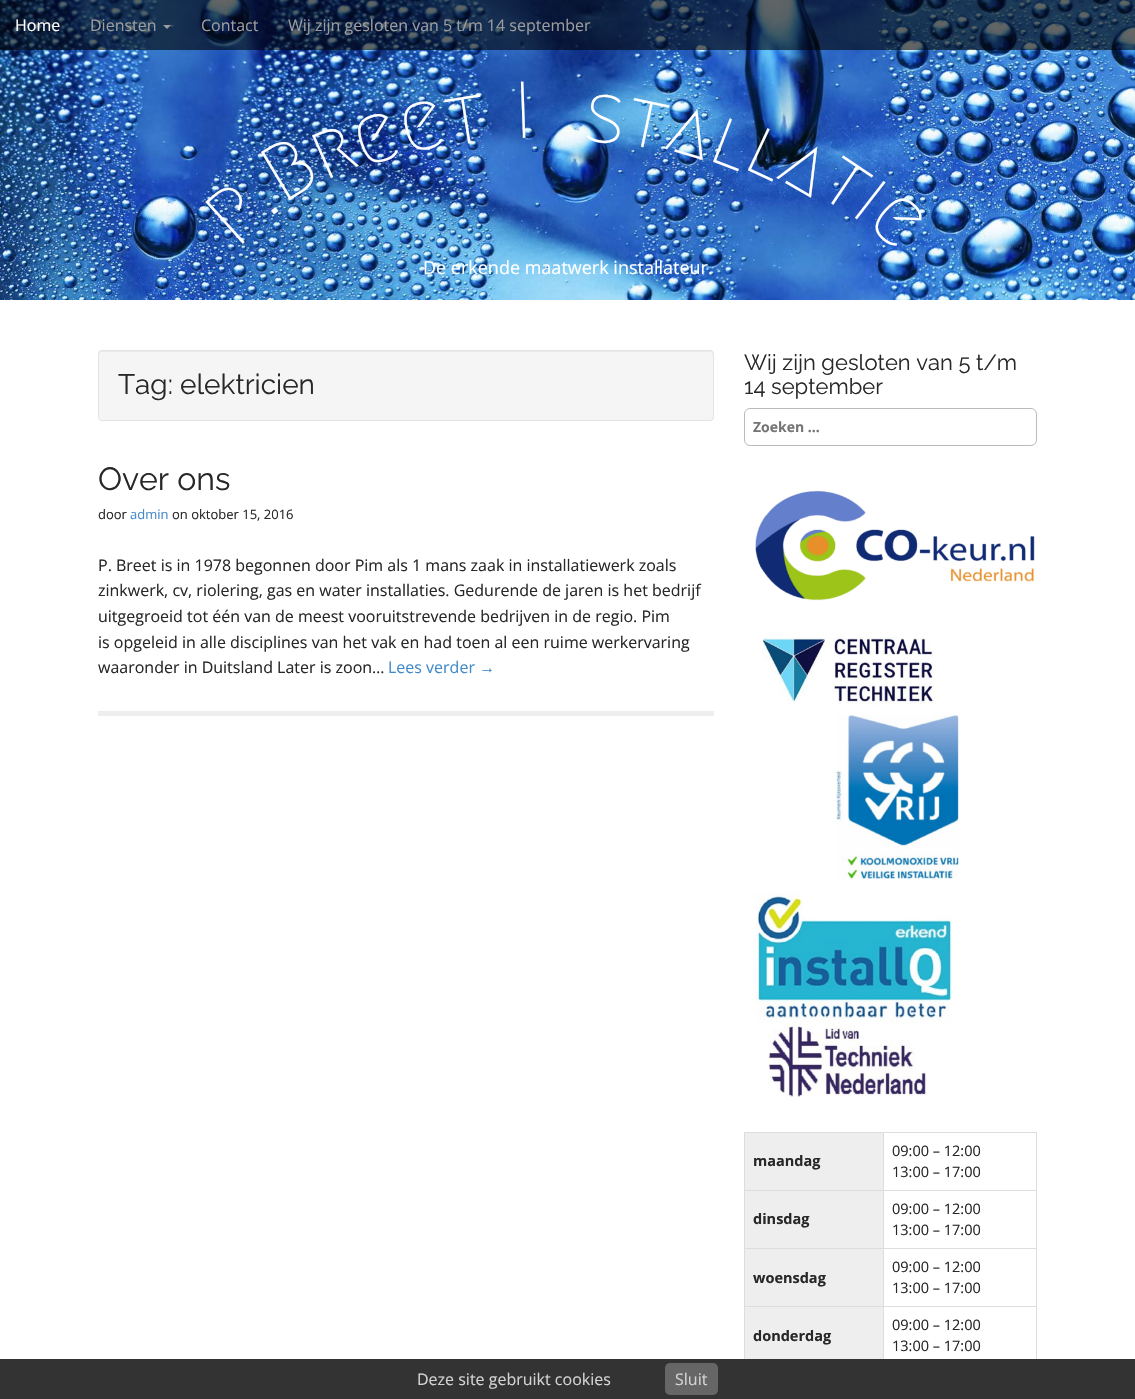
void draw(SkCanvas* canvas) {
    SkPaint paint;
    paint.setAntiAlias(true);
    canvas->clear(0xFFFFFFFF);
    canvas->drawImageRect(SkImages::DeferredFromEncodedData(SkData::MakeFromFileName("img1.png")), SkRect::MakeXYWH(0, 0, 1135, 300), SkSamplingOptions());
    paint.setColor(0x99000000);
    canvas->drawRect(SkRect::MakeXYWH(0, 0, 1135, 50), paint);
    SkFont font1(fontMgr->matchFamilyStyle("Open Sans", SkFontStyle::Normal()), 16);
    font1.setSubpixel(true);
    paint.setColor(0xFFFFFFFF);
    canvas->drawString("Home", 15, 31, font1, paint);
    paint.setColor(0xFF9D9D9D);
    canvas->drawString("Diensten", 90, 31, font1, paint);
    canvas->drawPath(SkPathBuilder().moveTo(163, 25).lineTo(171, 25).lineTo(167, 29).close().detach(), paint);
    canvas->drawString("Contact", 201, 31, font1, paint);
    canvas->drawString("Wij zijn gesloten van 5 t/m 14 september", 288, 31, font1, paint);
    SkFont font2(fontMgr->matchFamilyStyle("Megrim", SkFontStyle(500, SkFontStyle::kNormal_Width, SkFontStyle::kUpright_Slant)), 80);
    font2.setSubpixel(true);
    paint.setColor(0xFFFFFFFF);
    canvas->save();
    canvas->rotate(-31, 283, 204);
    canvas->drawString("B", 283, 204, font2, paint);
    canvas->restore();
    canvas->save();
    canvas->rotate(-24, 324, 181);
    canvas->drawString("r", 324, 181, font2, paint);
    canvas->restore();
    canvas->save();
    canvas->rotate(-19, 363, 168);
    canvas->drawString("e", 363, 168, font2, paint);
    canvas->restore();
    canvas->save();
    canvas->rotate(-14, 406, 154);
    canvas->drawString("e", 406, 154, font2, paint);
    canvas->restore();
    canvas->save();
    canvas->rotate(-9, 450, 146);
    canvas->drawString("t", 450, 146, font2, paint);
    canvas->restore();
    canvas->save();
    canvas->rotate(-2, 515, 138);
    canvas->drawString("I", 515, 138, font2, paint);
    canvas->restore();
    canvas->save();
    canvas->rotate(8, 581, 139);
    canvas->drawString("s", 581, 139, font2, paint);
    canvas->restore();
    canvas->save();
    canvas->rotate(12, 623, 143);
    canvas->drawString("t", 623, 143, font2, paint);
    canvas->restore();
    canvas->save();
    canvas->rotate(17, 663, 148);
    canvas->drawString("a", 663, 148, font2, paint);
    canvas->restore();
    canvas->save();
    canvas->rotate(21, 706, 159);
    canvas->drawString("l", 706, 159, font2, paint);
    canvas->restore();
    canvas->save();
    canvas->rotate(25, 741, 167);
    canvas->drawString("l", 741, 167, font2, paint);
    canvas->restore();
    canvas->save();
    canvas->rotate(30, 775, 177);
    canvas->drawString("a", 775, 177, font2, paint);
    canvas->restore();
    canvas->save();
    canvas->rotate(34, 816, 193);
    canvas->drawString("t", 816, 193, font2, paint);
    canvas->restore();
    canvas->save();
    canvas->rotate(-42, 237, 249);
    canvas->drawString("P", 237, 249, font2, paint);
    canvas->restore();
    canvas->save();
    canvas->rotate(-37, 269, 218);
    canvas->drawString(".", 269, 218, font2, paint);
    canvas->restore();
    canvas->save();
    canvas->rotate(38, 849, 213);
    canvas->drawString("i", 849, 213, font2, paint);
    canvas->restore();
    canvas->save();
    canvas->rotate(42, 865, 223);
    canvas->drawString("e", 865, 223, font2, paint);
    canvas->restore();
    SkFont font3(fontMgr->matchFamilyStyle("Open Sans", SkFontStyle::Normal()), 18);
    font3.setSubpixel(true);
    canvas->drawString("De erkende maatwerk installateur.", 423, 274, font3, paint);
    paint.setColor(0xFFF5F5F5);
    canvas->drawRoundRect(SkRect::MakeXYWH(98, 350, 616, 71), 4, 4, paint);
    paint.setColor(0xFFE9E9E9);
    canvas->drawPath(SkPathBuilder().moveTo(102, 352).lineTo(710, 352).cubicTo(712, 352, 713, 353, 713, 355).lineTo(713, 354).cubicTo(713, 352, 712, 351, 710, 351).lineTo(102, 351).cubicTo(100, 351, 99, 352, 99, 354).lineTo(99, 355).cubicTo(99, 353, 100, 352, 102, 352).close().detach(), paint);
    paint.setStyle(SkPaint::kStroke_Style);
    paint.setStrokeWidth(1);
    paint.setColor(0xFFE3E3E3);
    canvas->drawRoundRect(SkRect::MakeXYWH(98.5f, 350.5f, 615, 70), 3.5f, 3.5f, paint);
    SkFont font4(fontMgr->matchFamilyStyle("Raleway", SkFontStyle(100, SkFontStyle::kNormal_Width, SkFontStyle::kUpright_Slant)), 28);
    font4.setSubpixel(true);
    paint.setStyle(SkPaint::kFill_Style);
    paint.setColor(0xFF282828);
    canvas->drawString("Tag: elektricien", 118, 394, font4, paint);
    paint.setColor(0xFFEEEEEE);
    canvas->drawRect(SkRect::MakeXYWH(98, 711, 616, 5), paint);
    SkFont font5(fontMgr->matchFamilyStyle("Raleway", SkFontStyle(100, SkFontStyle::kNormal_Width, SkFontStyle::kUpright_Slant)), 32);
    font5.setSubpixel(true);
    paint.setColor(0xFF282828);
    canvas->drawString("Over ons", 98, 490, font5, paint);
    SkFont font6(fontMgr->matchFamilyStyle("Open Sans", SkFontStyle::Normal()), 13);
    font6.setSubpixel(true);
    canvas->drawString("door", 98, 519, font6, paint);
    paint.setColor(0xFF428BCA);
    canvas->drawString("admin", 130, 519, font6, paint);
    paint.setColor(0xFF282828);
    canvas->drawString("on oktober 15, 2016", 172, 519, font6, paint);
    canvas->drawString("P. Breet is in 1978 begonnen door Pim als 1 mans zaak in installatiewerk zoals", 98, 571, font1, paint);
    canvas->drawString("zinkwerk, cv, riolering, gas en water installaties. Gedurende de jaren is het bedrijf", 98, 596, font1, paint);
    canvas->drawString("uitgegroeid tot één van de meest vooruitstrevende bedrijven in de regio. Pim", 98, 622, font1, paint);
    canvas->drawString("is opgeleid in alle disciplines van het vak en had toen al een ruime werkervaring", 98, 648, font1, paint);
    canvas->drawString("waaronder in Duitsland Later is zoon…", 98, 673, font1, paint);
    paint.setColor(0xFF428BCA);
    canvas->drawString("Lees verder", 388, 673, font1, paint);
    SkFont font7(fontMgr->matchFamilyStyle("Liberation Sans", SkFontStyle::Normal()), 16);
    font7.setSubpixel(true);
    canvas->drawString("→", 479, 673, font7, paint);
    SkFont font8(fontMgr->matchFamilyStyle("Raleway", SkFontStyle(100, SkFontStyle::kNormal_Width, SkFontStyle::kUpright_Slant)), 22);
    font8.setSubpixel(true);
    paint.setColor(0xFF282828);
    canvas->drawString("Wij zijn gesloten van 5 t/m", 744, 370, font8, paint);
    canvas->drawString("14 september", 744, 394, font8, paint);
    paint.setStyle(SkPaint::kStroke_Style);
    paint.setColor(0xFFBBBBBB);
    canvas->drawRoundRect(SkRect::MakeXYWH(744.5f, 408.5f, 292, 37), 5.5f, 5.5f, paint);
    SkFont font9(fontMgr->matchFamilyStyle("Open Sans", SkFontStyle::Bold()), 14);
    font9.setSubpixel(true);
    paint.setStyle(SkPaint::kFill_Style);
    paint.setColor(0xFF757575);
    canvas->drawString("Zoeken …", 753, 432, font9, paint);
    canvas->drawImageRect(SkImages::DeferredFromEncodedData(SkData::MakeFromFileName("img2.png")), SkRect::MakeXYWH(755, 490, 280, 607), SkSamplingOptions());
    paint.setColor(0xFFEEEEEE);
    canvas->drawRect(SkRect::MakeXYWH(745, 1133, 138, 57), paint);
    paint.setColor(0xFFDDDDDD);
    canvas->drawRect(SkRect::MakeXYWH(883, 1132, 154, 1), paint);
    canvas->drawRect(SkRect::MakeXYWH(883, 1190, 154, 1), paint);
    canvas->drawRect(SkRect::MakeXYWH(883, 1248, 154, 1), paint);
    canvas->drawRect(SkRect::MakeXYWH(883, 1306, 154, 1), paint);
    canvas->drawRect(SkRect::MakeXYWH(883, 1306, 1, 60), paint);
    canvas->drawRect(SkRect::MakeXYWH(744, 1306, 140, 1), paint);
    canvas->drawRect(SkRect::MakeXYWH(883, 1248, 1, 59), paint);
    canvas->drawRect(SkRect::MakeXYWH(744, 1248, 140, 1), paint);
    canvas->drawRect(SkRect::MakeXYWH(883, 1190, 1, 59), paint);
    canvas->drawRect(SkRect::MakeXYWH(744, 1190, 140, 1), paint);
    canvas->drawRect(SkRect::MakeXYWH(883, 1132, 1, 59), paint);
    canvas->drawRect(SkRect::MakeXYWH(744, 1132, 140, 1), paint);
    canvas->drawRect(SkRect::MakeXYWH(744, 1306, 1, 60), paint);
    canvas->drawRect(SkRect::MakeXYWH(744, 1248, 1, 59), paint);
    canvas->drawRect(SkRect::MakeXYWH(744, 1190, 1, 59), paint);
    canvas->drawRect(SkRect::MakeXYWH(744, 1132, 1, 59), paint);
    SkFont font10(fontMgr->matchFamilyStyle("Open Sans", SkFontStyle::Bold()), 14.5f);
    font10.setSubpixel(true);
    paint.setColor(0xFF282828);
    canvas->drawString("maandag", 753, 1166, font10, paint);
    paint.setColor(0xFFDDDDDD);
    canvas->drawRect(SkRect::MakeXYWH(1036, 1306, 1, 60), paint);
    canvas->drawRect(SkRect::MakeXYWH(1036, 1248, 1, 59), paint);
    canvas->drawRect(SkRect::MakeXYWH(1036, 1190, 1, 59), paint);
    canvas->drawRect(SkRect::MakeXYWH(1036, 1132, 1, 59), paint);
    SkFont font11(fontMgr->matchFamilyStyle("Open Sans", SkFontStyle::Normal()), 14.5f);
    font11.setSubpixel(true);
    paint.setColor(0xFF282828);
    canvas->drawString("09:00 – 12:00", 892, 1156, font11, paint);
    canvas->drawString("13:00 – 17:00", 892, 1177, font11, paint);
    paint.setColor(0xFFEEEEEE);
    canvas->drawRect(SkRect::MakeXYWH(745, 1191, 138, 57), paint);
    paint.setColor(0xFF282828);
    canvas->drawString("dinsdag", 753, 1224, font10, paint);
    canvas->drawString("09:00 – 12:00", 892, 1214, font11, paint);
    canvas->drawString("13:00 – 17:00", 892, 1235, font11, paint);
    paint.setColor(0xFFEEEEEE);
    canvas->drawRect(SkRect::MakeXYWH(745, 1249, 138, 57), paint);
    paint.setColor(0xFF282828);
    canvas->drawString("woensdag", 753, 1283, font10, paint);
    canvas->drawString("09:00 – 12:00", 892, 1272, font11, paint);
    canvas->drawString("13:00 – 17:00", 892, 1293, font11, paint);
    paint.setColor(0xFFEEEEEE);
    canvas->drawRect(SkRect::MakeXYWH(745, 1307, 138, 52), paint);
    paint.setColor(0xFF282828);
    canvas->drawString("donderdag", 753, 1341, font10, paint);
    canvas->drawString("09:00 – 12:00", 892, 1330, font11, paint);
    canvas->drawString("13:00 – 17:00", 892, 1351, font11, paint);
    paint.setColor(0xFF333333);
    canvas->drawRect(SkRect::MakeXYWH(0, 1359, 1135, 40), paint);
    paint.setColor(0xFFD4D4D4);
    canvas->drawString("Deze site gebruikt cookies", 417, 1385, font1, paint);
    paint.setColor(0xFF666666);
    canvas->drawRoundRect(SkRect::MakeXYWH(665, 1363, 53, 32), 5, 5, paint);
    paint.setColor(0xFFD4D4D4);
    canvas->drawString("Sluit", 675, 1385, font1, paint);
}
